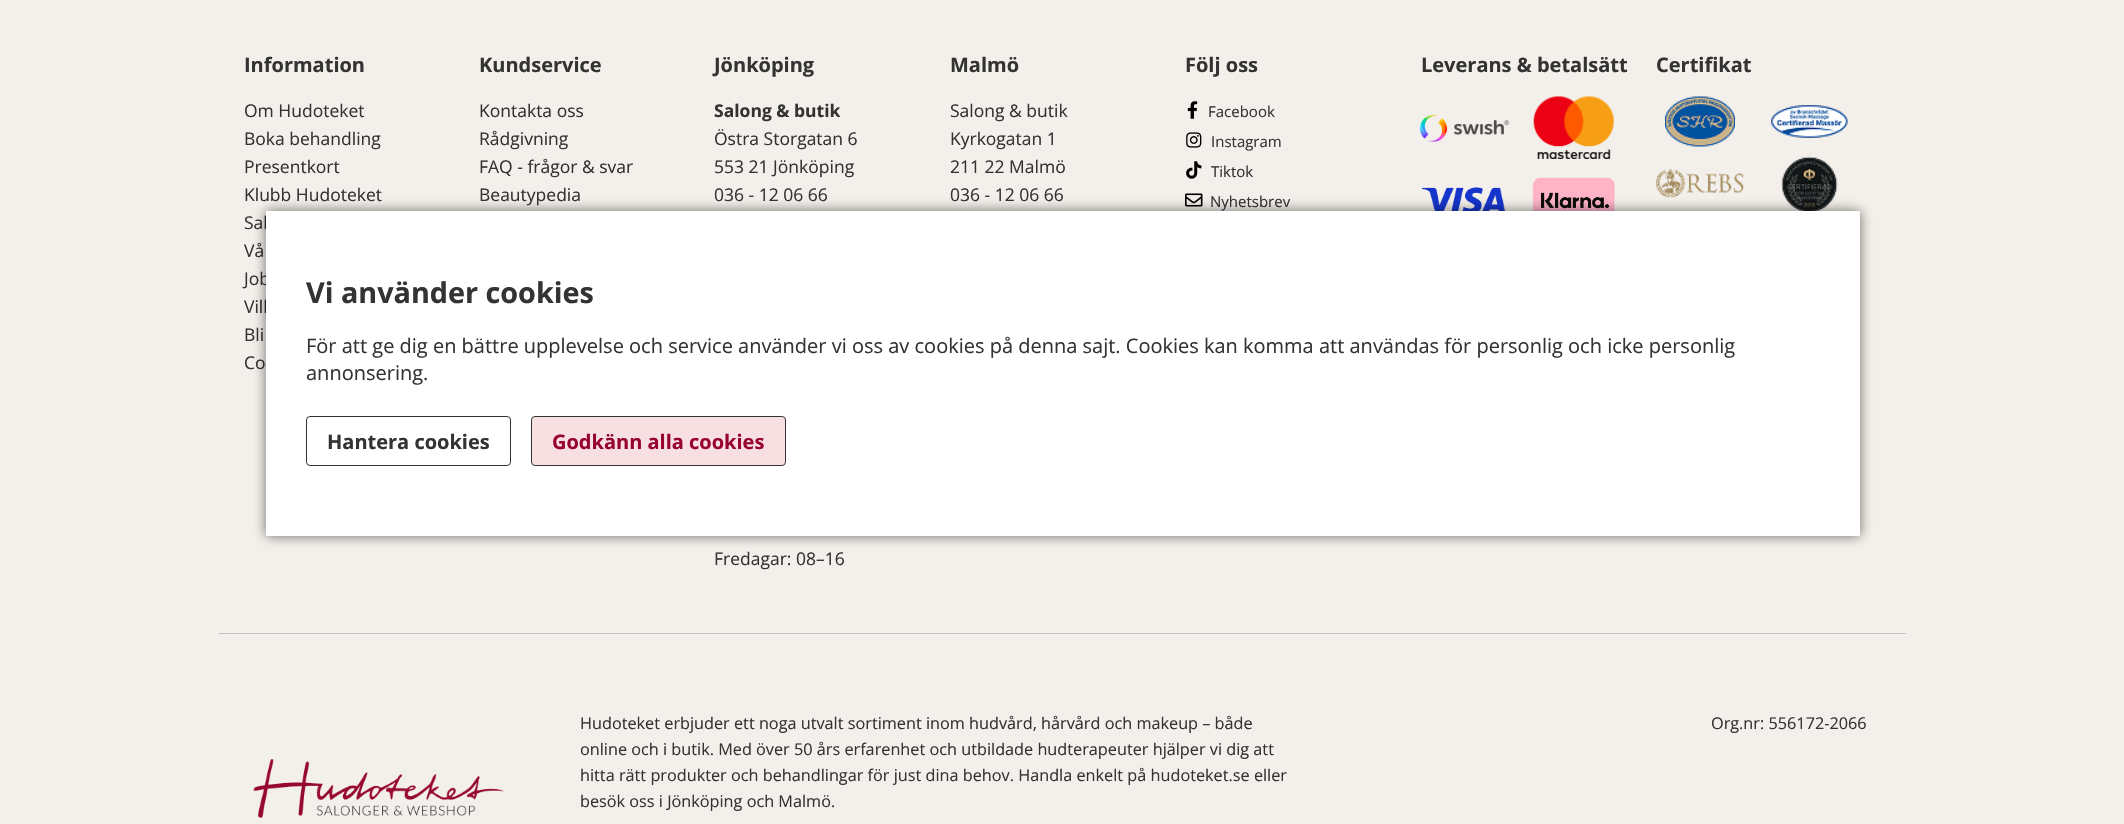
void draw(SkCanvas* canvas) {
    SkPaint paint;
    paint.setAntiAlias(true);
    canvas->clear(0xFFF3EFEA);
    SkFont font1(fontMgr->matchFamilyStyle("Open Sans", SkFontStyle::Bold()), 20);
    font1.setSubpixel(true);
    paint.setColor(0xFF333333);
    canvas->drawString("Information", 244, 72, font1, paint);
    SkFont font2(fontMgr->matchFamilyStyle("Open Sans", SkFontStyle::Normal()), 17.5f);
    font2.setSubpixel(true);
    canvas->drawString("Om Hudoteket", 244, 117, font2, paint);
    canvas->drawString("Boka behandling", 244, 145, font2, paint);
    canvas->drawString("Presentkort", 244, 173, font2, paint);
    canvas->drawString("Klubb Hudoteket", 244, 201, font2, paint);
    canvas->drawString("Sal", 244, 229, font2, paint);
    canvas->drawString("Vå", 244, 257, font2, paint);
    canvas->drawString("Job", 244, 285, font2, paint);
    canvas->drawString("Vill", 244, 313, font2, paint);
    canvas->drawString("Bli", 244, 341, font2, paint);
    canvas->drawString("Co", 244, 369, font2, paint);
    canvas->drawString("Kundservice", 479, 72, font1, paint);
    canvas->drawString("Kontakta oss", 479, 117, font2, paint);
    canvas->drawString("Rådgivning", 479, 145, font2, paint);
    canvas->drawString("FAQ - frågor & svar", 479, 173, font2, paint);
    canvas->drawString("Beautypedia", 479, 201, font2, paint);
    canvas->drawString("Jönköping", 714, 72, font1, paint);
    SkFont font3(fontMgr->matchFamilyStyle("Open Sans", SkFontStyle::Bold()), 17.5f);
    font3.setSubpixel(true);
    canvas->drawString("Salong & butik", 714, 117, font3, paint);
    canvas->drawString("Östra Storgatan 6", 714, 145, font2, paint);
    canvas->drawString("553 21 Jönköping", 714, 173, font2, paint);
    canvas->drawString("036 - 12 06 66", 714, 201, font2, paint);
    canvas->drawString("Fredagar: 08–16", 714, 565, font2, paint);
    canvas->drawString("Malmö", 950, 72, font1, paint);
    canvas->drawString("Salong & butik", 950, 117, font2, paint);
    canvas->drawString("Kyrkogatan 1", 950, 145, font2, paint);
    canvas->drawString("211 22 Malmö", 950, 173, font2, paint);
    canvas->drawString("036 - 12 06 66", 950, 201, font2, paint);
    canvas->drawString("Följ oss", 1185, 72, font1, paint);
    canvas->drawImageRect(SkImages::DeferredFromEncodedData(SkData::MakeFromFileName("img1.png")), SkRect::MakeXYWH(1187, 101, 11, 18), SkSamplingOptions());
    SkFont font4(fontMgr->matchFamilyStyle("Open Sans", SkFontStyle::Normal()), 15);
    font4.setSubpixel(true);
    canvas->drawString("Facebook", 1208, 117, font4, paint);
    canvas->drawImageRect(SkImages::DeferredFromEncodedData(SkData::MakeFromFileName("img2.png")), SkRect::MakeXYWH(1186, 132, 16, 16), SkSamplingOptions());
    canvas->drawString("Instagram", 1211, 147, font4, paint);
    canvas->drawImageRect(SkImages::DeferredFromEncodedData(SkData::MakeFromFileName("img3.png")), SkRect::MakeXYWH(1186, 161, 16, 18), SkSamplingOptions());
    canvas->drawString("Tiktok", 1211, 177, font4, paint);
    canvas->drawImageRect(SkImages::DeferredFromEncodedData(SkData::MakeFromFileName("img4.png")), SkRect::MakeXYWH(1185, 193, 18, 14), SkSamplingOptions());
    canvas->drawString("Nyhetsbrev", 1210, 207, font4, paint);
    canvas->drawString("Leverans & betalsätt", 1421, 72, font1, paint);
    canvas->drawImageRect(SkImages::DeferredFromEncodedData(SkData::MakeFromFileName("img5.png")), SkRect::MakeXYWH(1420, 115, 89, 27), SkSamplingOptions());
    canvas->drawImageRect(SkImages::DeferredFromEncodedData(SkData::MakeFromFileName("img6.png")), SkRect::MakeXYWH(1533, 96, 81, 63), SkSamplingOptions());
    canvas->drawImageRect(SkImages::DeferredFromEncodedData(SkData::MakeFromFileName("img7.png")), SkRect::MakeXYWH(1421, 187, 84, 24), SkSamplingOptions());
    canvas->drawImageRect(SkImages::DeferredFromEncodedData(SkData::MakeFromFileName("img8.png")), SkRect::MakeXYWH(1532, 177, 83, 34), SkSamplingOptions());
    canvas->drawString("Certifikat", 1656, 72, font1, paint);
    canvas->drawImageRect(SkImages::DeferredFromEncodedData(SkData::MakeFromFileName("img9.png")), SkRect::MakeXYWH(1665, 96, 70, 51), SkSamplingOptions());
    canvas->drawImageRect(SkImages::DeferredFromEncodedData(SkData::MakeFromFileName("img10.png")), SkRect::MakeXYWH(1771, 105, 77, 33), SkSamplingOptions());
    canvas->drawImageRect(SkImages::DeferredFromEncodedData(SkData::MakeFromFileName("img11.png")), SkRect::MakeXYWH(1656, 169, 88, 29), SkSamplingOptions());
    canvas->drawImageRect(SkImages::DeferredFromEncodedData(SkData::MakeFromFileName("img12.png")), SkRect::MakeXYWH(1781, 156, 57, 55), SkSamplingOptions());
    paint.setColor(0xFFC5C3C0);
    canvas->drawRect(SkRect::MakeXYWH(219, 633, 1687, 1), paint);
    SkFont font5(fontMgr->matchFamilyStyle("Open Sans", SkFontStyle::Normal()), 16.25f);
    font5.setSubpixel(true);
    paint.setColor(0xFF333333);
    canvas->drawString("Hudoteket erbjuder ett noga utvalt sortiment inom hudvård, hårvård och makeup – både", 580, 729, font5, paint);
    canvas->drawString("online och i butik. Med över 50 års erfarenhet och utbildade hudterapeuter hjälper vi dig att", 580, 755, font5, paint);
    canvas->drawString("hitta rätt produkter och behandlingar för just dina behov. Handla enkelt på hudoteket.se eller", 580, 781, font5, paint);
    canvas->drawString("besök oss i Jönköping och Malmö.", 580, 807, font5, paint);
    canvas->drawString("Org.nr: 556172-2066", 1711, 729, font5, paint);
    canvas->drawImageRect(SkImages::DeferredFromEncodedData(SkData::MakeFromFileName("img13.png")), SkRect::MakeXYWH(253, 759, 251, 59), SkSamplingOptions());
    paint.setColor(0x8F050404);
    paint.setMaskFilter(SkMaskFilter::MakeBlur(kNormal_SkBlurStyle, 6));
    canvas->drawRect(SkRect::MakeXYWH(266, 211, 1594, 325), paint);
    paint.setMaskFilter(nullptr);
    paint.setColor(0xFFFFFFFF);
    canvas->drawRect(SkRect::MakeXYWH(266, 211, 1594, 325), paint);
    SkFont font6(fontMgr->matchFamilyStyle("Open Sans", SkFontStyle::Bold()), 28.75f);
    font6.setSubpixel(true);
    paint.setColor(0xFF333333);
    canvas->drawString("Vi använder cookies", 306, 303, font6, paint);
    SkFont font7(fontMgr->matchFamilyStyle("Open Sans", SkFontStyle::Normal()), 20);
    font7.setSubpixel(true);
    canvas->drawString("För att ge dig en bättre upplevelse och service använder vi oss av cookies på denna sajt. Cookies kan komma att användas för personlig och icke personlig", 306, 353, font7, paint);
    canvas->drawString("annonsering.", 306, 380, font7, paint);
    paint.setStyle(SkPaint::kStroke_Style);
    paint.setStrokeWidth(1);
    canvas->drawRoundRect(SkRect::MakeXYWH(306.5f, 416.5f, 204, 49), 3.5f, 3.5f, paint);
    paint.setStyle(SkPaint::kFill_Style);
    canvas->drawString("Hantera cookies", 327, 449, font1, paint);
    paint.setColor(0xFFF8DFE2);
    canvas->drawRoundRect(SkRect::MakeXYWH(531.5f, 416.5f, 254, 49), 3.5f, 3.5f, paint);
    paint.setStyle(SkPaint::kStroke_Style);
    paint.setColor(0xFF333333);
    canvas->drawRoundRect(SkRect::MakeXYWH(531.5f, 416.5f, 254, 49), 3.5f, 3.5f, paint);
    paint.setStyle(SkPaint::kFill_Style);
    paint.setColor(0xFF970232);
    canvas->drawString("Godkänn alla cookies", 552, 449, font1, paint);
}
